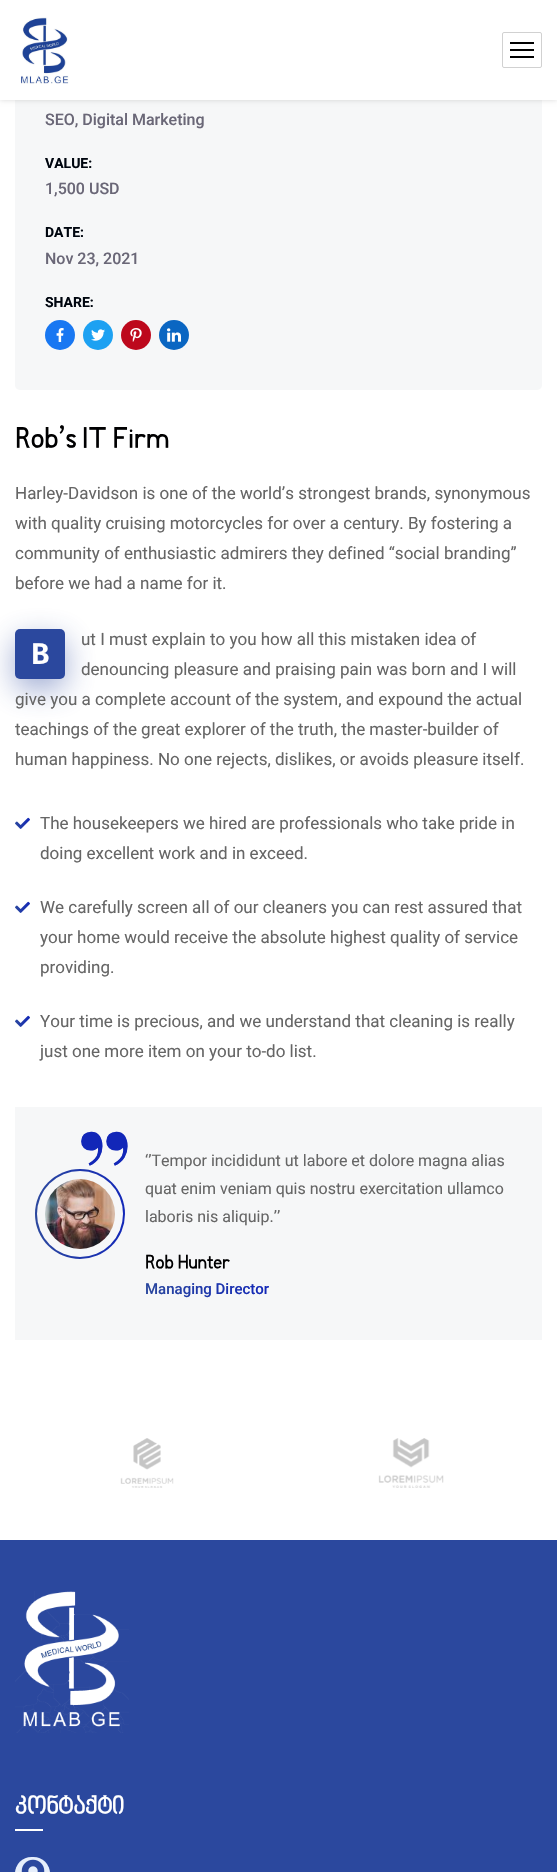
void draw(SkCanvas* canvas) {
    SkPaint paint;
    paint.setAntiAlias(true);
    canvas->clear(0xFFFFFFFF);
    paint.setColor(0xFFF6F7F8);
    canvas->drawRoundRect(SkRect::MakeXYWH(15, -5, 527, 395), 5, 5, paint);
    paint.setColor(0x26000000);
    paint.setMaskFilter(SkMaskFilter::MakeBlur(kNormal_SkBlurStyle, 2.5f));
    canvas->drawRect(SkRect::MakeXYWH(0, 0, 557, 100), paint);
    paint.setMaskFilter(nullptr);
    paint.setColor(0xFFFFFFFF);
    canvas->drawRect(SkRect::MakeXYWH(0, 0, 557, 100), paint);
    canvas->drawImageRect(SkImages::DeferredFromEncodedData(SkData::MakeFromFileName("img1.png")), SkRect::MakeXYWH(21, 17, 48, 67), SkSamplingOptions());
    paint.setStyle(SkPaint::kStroke_Style);
    paint.setStrokeWidth(1);
    paint.setColor(0xFFD1D1D1);
    canvas->drawRoundRect(SkRect::MakeXYWH(502.5f, 32.5f, 39, 35), 1.5f, 1.5f, paint);
    paint.setStyle(SkPaint::kFill_Style);
    paint.setColor(0xFF000000);
    canvas->drawRect(SkRect::MakeXYWH(510, 42, 24, 2), paint);
    canvas->drawRect(SkRect::MakeXYWH(510, 49, 24, 2), paint);
    canvas->drawRect(SkRect::MakeXYWH(510, 56, 24, 2), paint);
    SkFont font1(fontMgr->matchFamilyStyle("Roboto", SkFontStyle(500, SkFontStyle::kNormal_Width, SkFontStyle::kUpright_Slant)), 16);
    font1.setSubpixel(true);
    paint.setColor(0xFF6A6777);
    canvas->drawString("SEO, Digital Marketing", 45, 125, font1, paint);
    SkFont font2(fontMgr->matchFamilyStyle("Roboto", SkFontStyle::Bold()), 14);
    font2.setSubpixel(true);
    paint.setColor(0xFF00060F);
    canvas->drawString("VALUE:", 45, 168, font2, paint);
    paint.setColor(0xFF6A6777);
    canvas->drawString("1,500 USD", 45, 194, font1, paint);
    paint.setColor(0xFF00060F);
    canvas->drawString("DATE:", 45, 237, font2, paint);
    paint.setColor(0xFF6A6777);
    canvas->drawString("Nov 23, 2021", 45, 264, font1, paint);
    paint.setColor(0xFF00060F);
    canvas->drawString("SHARE:", 45, 307, font2, paint);
    paint.setColor(0xFF1877F2);
    canvas->drawCircle(60, 335, 15, paint);
    canvas->drawImageRect(SkImages::DeferredFromEncodedData(SkData::MakeFromFileName("img2.png")), SkRect::MakeXYWH(56, 328, 8, 14), SkSamplingOptions());
    paint.setColor(0xFF1DA1F2);
    canvas->drawCircle(98, 335, 15, paint);
    canvas->drawImageRect(SkImages::DeferredFromEncodedData(SkData::MakeFromFileName("img3.png")), SkRect::MakeXYWH(91, 329, 14, 12), SkSamplingOptions());
    paint.setColor(0xFFBD081C);
    canvas->drawCircle(136, 335, 15, paint);
    canvas->drawImageRect(SkImages::DeferredFromEncodedData(SkData::MakeFromFileName("img4.png")), SkRect::MakeXYWH(130, 328, 12, 14), SkSamplingOptions());
    paint.setColor(0xFF0A66C2);
    canvas->drawCircle(174, 335, 15, paint);
    canvas->drawImageRect(SkImages::DeferredFromEncodedData(SkData::MakeFromFileName("img5.png")), SkRect::MakeXYWH(167, 328, 14, 14), SkSamplingOptions());
    SkFont font3(fontMgr->matchFamilyStyle("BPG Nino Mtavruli", SkFontStyle::Bold()), 30);
    font3.setSubpixel(true);
    paint.setColor(0xFF000001);
    canvas->drawString("Rob’s IT Firm", 15, 450, font3, paint);
    SkFont font4(fontMgr->matchFamilyStyle("Roboto", SkFontStyle::Normal()), 17);
    font4.setSubpixel(true);
    paint.setColor(0xFF666666);
    canvas->drawString("Harley-Davidson is one of the world’s strongest brands, synonymous", 15, 499, font4, paint);
    canvas->drawString("with quality cruising motorcycles for over a century. By fostering a", 15, 529, font4, paint);
    canvas->drawString("community of enthusiastic admirers they defined “social branding”", 15, 559, font4, paint);
    canvas->drawString("before we had a name for it.", 15, 589, font4, paint);
    paint.setColor(0x732B489E);
    paint.setMaskFilter(SkMaskFilter::MakeBlur(kNormal_SkBlurStyle, 15));
    canvas->drawRoundRect(SkRect::MakeXYWH(15, 639, 50, 50), 5, 5, paint);
    paint.setMaskFilter(nullptr);
    paint.setColor(0xFF666666);
    canvas->drawString("ut I must explain to you how all this mistaken idea of", 81, 645, font4, paint);
    paint.setColor(0xFF2B489E);
    canvas->drawRoundRect(SkRect::MakeXYWH(15, 629, 50, 50), 5, 5, paint);
    SkFont font5(fontMgr->matchFamilyStyle("Fira Sans", SkFontStyle(600, SkFontStyle::kNormal_Width, SkFontStyle::kUpright_Slant)), 30);
    font5.setSubpixel(true);
    paint.setColor(0xFFFFFFFF);
    canvas->drawString("B", 31, 664, font5, paint);
    paint.setColor(0xFF666666);
    canvas->drawString("denouncing pleasure and praising pain was born and I will", 81, 675, font4, paint);
    canvas->drawString("give you a complete account of the system, and expound the actual", 15, 705, font4, paint);
    canvas->drawString("teachings of the great explorer of the truth, the master-builder of", 15, 735, font4, paint);
    canvas->drawString("human happiness. No one rejects, dislikes, or avoids pleasure itself.", 15, 765, font4, paint);
    canvas->drawImageRect(SkImages::DeferredFromEncodedData(SkData::MakeFromFileName("img6.png")), SkRect::MakeXYWH(15, 817, 15, 12), SkSamplingOptions());
    canvas->drawString("The housekeepers we hired are professionals who take pride in", 40, 829, font4, paint);
    canvas->drawString("doing excellent work and in exceed.", 40, 859, font4, paint);
    canvas->drawImageRect(SkImages::DeferredFromEncodedData(SkData::MakeFromFileName("img6.png")), SkRect::MakeXYWH(15, 901, 15, 12), SkSamplingOptions());
    canvas->drawString("We carefully screen all of our cleaners you can rest assured that", 40, 913, font4, paint);
    canvas->drawString("your home would receive the absolute highest quality of service", 40, 943, font4, paint);
    canvas->drawString("providing.", 40, 973, font4, paint);
    canvas->drawImageRect(SkImages::DeferredFromEncodedData(SkData::MakeFromFileName("img6.png")), SkRect::MakeXYWH(15, 1015, 15, 12), SkSamplingOptions());
    canvas->drawString("Your time is precious, and we understand that cleaning is really", 40, 1027, font4, paint);
    canvas->drawString("just one more item on your to-do list.", 40, 1057, font4, paint);
    paint.setColor(0xFFF6F7F8);
    canvas->drawRect(SkRect::MakeXYWH(15, 1107, 527, 233), paint);
    SkFont font6(fontMgr->matchFamilyStyle("Playfair Display", SkFontStyle::Bold()), 122);
    font6.setSubpixel(true);
    {
        const SkColor colors[] = {0xFF1227B8, 0xFF2B489E};
        const float stops[] = {0, 1};
        const SkPoint ends[] = {{133, 1127}, {76, 1127}};
        paint.setShader(SkGradientShader::MakeLinear(ends, colors, stops, 2, SkTileMode::kClamp));
        paint.setAlpha(255);
    }
    canvas->save();
    canvas->rotate(180, 133, 1077);
    canvas->drawString("“", 133, 1077, font6, paint);
    canvas->restore();
    {
        const SkColor colors[] = {0xFF2B489E, 0xFF1227B8};
        const float stops[] = {0, 1};
        const SkPoint ends[] = {{35, 1214}, {125, 1214}};
        paint.setShader(SkGradientShader::MakeLinear(ends, colors, stops, 2, SkTileMode::kClamp));
        paint.setAlpha(255);
    }
    canvas->drawCircle(80, 1214, 45, paint);
    paint.setShader(nullptr);
    paint.setColor(0xFFF6F7F8);
    canvas->drawCircle(80, 1214, 43, paint);
    canvas->drawImageRect(SkImages::DeferredFromEncodedData(SkData::MakeFromFileName("img7.png")), SkRect::MakeXYWH(45, 1179, 70, 70), SkSamplingOptions());
    SkFont font7(fontMgr->matchFamilyStyle("Roboto", SkFontStyle::Normal()), 16);
    font7.setSubpixel(true);
    paint.setColor(0xFF666666);
    canvas->drawString("‘’Tempor incididunt ut labore et dolore magna alias", 145, 1166, font7, paint);
    canvas->drawString("quat enim veniam quis nostru exercitation ullamco", 145, 1194, font7, paint);
    canvas->drawString("laboris nis aliquip.’’", 145, 1222, font7, paint);
    SkFont font8(fontMgr->matchFamilyStyle("BPG Nino Mtavruli", SkFontStyle::Bold()), 20);
    font8.setSubpixel(true);
    paint.setColor(0xFF000001);
    canvas->drawString("Rob Hunter", 145, 1270, font8, paint);
    SkFont font9(fontMgr->matchFamilyStyle("Roboto", SkFontStyle(500, SkFontStyle::kNormal_Width, SkFontStyle::kUpright_Slant)), 15);
    font9.setSubpixel(true);
    {
        const SkColor colors[] = {0xFF2B489E, 0xFF1227B8};
        const float stops[] = {0, 1};
        const SkPoint ends[] = {{145, 1289}, {269, 1289}};
        paint.setShader(SkGradientShader::MakeLinear(ends, colors, stops, 2, SkTileMode::kClamp));
        paint.setAlpha(255);
    }
    canvas->drawString("Managing Director", 145, 1294, font9, paint);
    canvas->drawImageRect(SkImages::DeferredFromEncodedData(SkData::MakeFromFileName("img8.png")), SkRect::MakeXYWH(120, 1438, 54, 50), SkSamplingOptions());
    canvas->drawImageRect(SkImages::DeferredFromEncodedData(SkData::MakeFromFileName("img9.png")), SkRect::MakeXYWH(378, 1438, 66, 50), SkSamplingOptions());
    paint.setShader(nullptr);
    paint.setColor(0xFF2B489E);
    canvas->drawRect(SkRect::MakeXYWH(0, 1540, 557, 332), paint);
    canvas->drawImageRect(SkImages::DeferredFromEncodedData(SkData::MakeFromFileName("img10.png")), SkRect::MakeXYWH(15, 1591, 114, 142), SkSamplingOptions());
    SkFont font10(fontMgr->matchFamilyStyle("BPG Nino Mtavruli", SkFontStyle::Bold()), 24);
    font10.setSubpixel(true);
    paint.setColor(0xFFFFFFFF);
    canvas->drawString("კონტაქტი", 15, 1815, font10, paint);
    canvas->drawRect(SkRect::MakeXYWH(15, 1829, 28, 2), paint);
    paint.setColor(0xFFE6EEFB);
    canvas->drawRoundRect(SkRect::MakeXYWH(15, 1857, 35, 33), 17.5f, 17.5f, paint);
    canvas->drawImageRect(SkImages::DeferredFromEncodedData(SkData::MakeFromFileName("img11.png")), SkRect::MakeXYWH(21, 1859, 24, 13), SkSamplingOptions());
}
